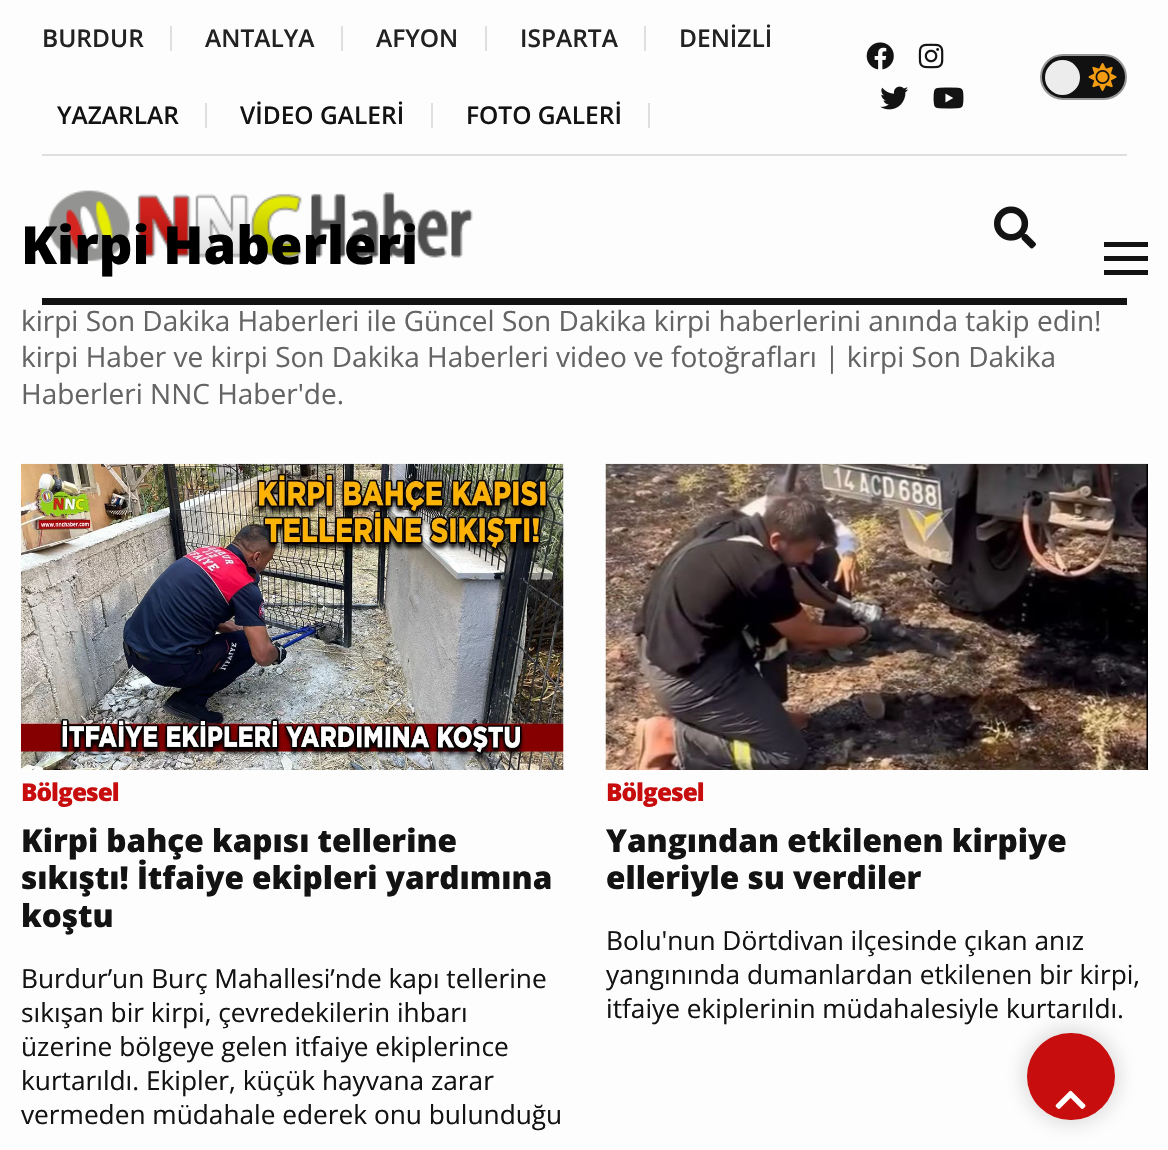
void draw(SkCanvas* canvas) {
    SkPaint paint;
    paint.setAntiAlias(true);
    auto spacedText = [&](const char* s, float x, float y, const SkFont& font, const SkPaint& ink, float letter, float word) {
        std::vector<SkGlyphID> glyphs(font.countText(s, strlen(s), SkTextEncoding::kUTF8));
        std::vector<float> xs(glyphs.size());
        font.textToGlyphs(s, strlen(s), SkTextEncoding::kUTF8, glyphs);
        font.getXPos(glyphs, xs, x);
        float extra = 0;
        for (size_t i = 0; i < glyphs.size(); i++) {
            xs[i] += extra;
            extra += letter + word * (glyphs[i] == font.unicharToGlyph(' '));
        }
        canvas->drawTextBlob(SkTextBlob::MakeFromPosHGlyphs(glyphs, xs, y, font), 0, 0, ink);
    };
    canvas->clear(0xFFFDFDFD);
    paint.setColor(0xFFDFDFDF);
    canvas->drawRect(SkRect::MakeXYWH(170, 26, 2, 25), paint);
    SkFont font1(fontMgr->matchFamilyStyle("Open Sans", SkFontStyle(600, SkFontStyle::kNormal_Width, SkFontStyle::kUpright_Slant)), 24.5f);
    font1.setSubpixel(true);
    paint.setColor(0xFF222222);
    canvas->drawString("BURDUR", 42, 47, font1, paint);
    paint.setColor(0xFFDFDFDF);
    canvas->drawRect(SkRect::MakeXYWH(341, 26, 2, 25), paint);
    paint.setColor(0xFF222222);
    canvas->drawString("ANTALYA", 205, 47, font1, paint);
    paint.setColor(0xFFDFDFDF);
    canvas->drawRect(SkRect::MakeXYWH(485, 26, 2, 25), paint);
    paint.setColor(0xFF222222);
    canvas->drawString("AFYON", 376, 47, font1, paint);
    paint.setColor(0xFFDFDFDF);
    canvas->drawRect(SkRect::MakeXYWH(644, 26, 2, 25), paint);
    paint.setColor(0xFF222222);
    canvas->drawString("ISPARTA", 520, 47, font1, paint);
    canvas->drawString("DENİZLİ", 679, 47, font1, paint);
    paint.setColor(0xFFDFDFDF);
    canvas->drawRect(SkRect::MakeXYWH(205, 103, 2, 25), paint);
    paint.setColor(0xFF131313);
    canvas->drawString("YAZARLAR", 57, 124, font1, paint);
    paint.setColor(0xFFDFDFDF);
    canvas->drawRect(SkRect::MakeXYWH(431, 103, 2, 25), paint);
    paint.setColor(0xFF131313);
    canvas->drawString("VİDEO GALERİ", 240, 124, font1, paint);
    paint.setColor(0xFFDFDFDF);
    canvas->drawRect(SkRect::MakeXYWH(648, 103, 2, 25), paint);
    paint.setColor(0xFF131313);
    canvas->drawString("FOTO GALERİ", 466, 124, font1, paint);
    canvas->drawImageRect(SkImages::DeferredFromEncodedData(SkData::MakeFromFileName("img1.png")), SkRect::MakeXYWH(866, 42, 28, 28), SkSamplingOptions());
    canvas->drawImageRect(SkImages::DeferredFromEncodedData(SkData::MakeFromFileName("img2.png")), SkRect::MakeXYWH(918, 43, 26, 26), SkSamplingOptions());
    canvas->drawImageRect(SkImages::DeferredFromEncodedData(SkData::MakeFromFileName("img3.png")), SkRect::MakeXYWH(880, 86, 29, 24), SkSamplingOptions());
    canvas->drawImageRect(SkImages::DeferredFromEncodedData(SkData::MakeFromFileName("img4.png")), SkRect::MakeXYWH(933, 87, 31, 22), SkSamplingOptions());
    paint.setColor(0xFF111111);
    canvas->drawRoundRect(SkRect::MakeXYWH(1041, 55, 85, 44), 22, 22, paint);
    paint.setStyle(SkPaint::kStroke_Style);
    paint.setStrokeWidth(2);
    paint.setColor(0xFF989898);
    canvas->drawRoundRect(SkRect::MakeXYWH(1041, 55, 85, 44), 22, 22, paint);
    paint.setStyle(SkPaint::kFill_Style);
    paint.setColor(0xFFECECEC);
    canvas->drawCircle(1062.5f, 77.5f, 17.5f, paint);
    canvas->drawImageRect(SkImages::DeferredFromEncodedData(SkData::MakeFromFileName("img5.png")), SkRect::MakeXYWH(1088, 63, 29, 28), SkSamplingOptions());
    paint.setColor(0xFFDFDFDF);
    canvas->drawRect(SkRect::MakeXYWH(42, 154, 1085, 2), paint);
    paint.setColor(0xFF131313);
    canvas->drawRect(SkRect::MakeXYWH(42, 298, 1085, 7), paint);
    canvas->drawImageRect(SkImages::DeferredFromEncodedData(SkData::MakeFromFileName("img6.png")), SkRect::MakeXYWH(48, 190, 425, 72), SkSamplingOptions());
    canvas->drawImageRect(SkImages::DeferredFromEncodedData(SkData::MakeFromFileName("img7.png")), SkRect::MakeXYWH(994, 206, 42, 43), SkSamplingOptions());
    canvas->drawRect(SkRect::MakeXYWH(1104, 242, 44, 5), paint);
    canvas->drawRect(SkRect::MakeXYWH(1104, 256, 44, 5), paint);
    canvas->drawRect(SkRect::MakeXYWH(1104, 270, 44, 5), paint);
    SkFont font2(fontMgr->matchFamilyStyle("Open Sans", SkFontStyle(800, SkFontStyle::kNormal_Width, SkFontStyle::kUpright_Slant)), 52.5f);
    font2.setSubpixel(true);
    paint.setColor(0xFF000000);
    canvas->drawString("Kirpi Haberleri", 21, 264, font2, paint);
    SkFont font3(fontMgr->matchFamilyStyle("Open Sans", SkFontStyle::Normal()), 28);
    font3.setSubpixel(true);
    paint.setColor(0xFF646464);
    canvas->drawString("kirpi Son Dakika Haberleri ile Güncel Son Dakika kirpi haberlerini anında takip edin!", 21, 331, font3, paint);
    canvas->drawString("kirpi Haber ve kirpi Son Dakika Haberleri video ve fotoğrafları | kirpi Son Dakika", 21, 367, font3, paint);
    canvas->drawString("Haberleri NNC Haber'de.", 21, 404, font3, paint);
    canvas->drawImageRect(SkImages::DeferredFromEncodedData(SkData::MakeFromFileName("img8.png")), SkRect::MakeXYWH(21, 463, 543, 307), SkSamplingOptions());
    SkFont font4(fontMgr->matchFamilyStyle("Open Sans", SkFontStyle(800, SkFontStyle::kNormal_Width, SkFontStyle::kUpright_Slant)), 24.5f);
    font4.setSubpixel(true);
    paint.setColor(0xFFC70D0D);
    spacedText("Bölgesel", 21, 801, font4, paint, -1, 0);
    SkFont font5(fontMgr->matchFamilyStyle("Open Sans", SkFontStyle(800, SkFontStyle::kNormal_Width, SkFontStyle::kUpright_Slant)), 31.5f);
    font5.setSubpixel(true);
    paint.setColor(0xFF131313);
    canvas->drawString("Kirpi bahçe kapısı tellerine", 21, 852, font5, paint);
    canvas->drawString("sıkıştı! İtfaiye ekipleri yardımına", 21, 889, font5, paint);
    canvas->drawString("koştu", 21, 927, font5, paint);
    SkFont font6(fontMgr->matchFamilyStyle("Open Sans", SkFontStyle::Normal()), 26.25f);
    font6.setSubpixel(true);
    canvas->drawString("Burdur’un Burç Mahallesi’nde kapı tellerine", 21, 988, font6, paint);
    canvas->drawString("sıkışan bir kirpi, çevredekilerin ihbarı", 21, 1022, font6, paint);
    canvas->drawString("üzerine bölgeye gelen itfaiye ekiplerince", 21, 1056, font6, paint);
    canvas->drawString("kurtarıldı. Ekipler, küçük hayvana zarar", 21, 1090, font6, paint);
    canvas->drawString("vermeden müdahale ederek onu bulunduğu", 21, 1124, font6, paint);
    canvas->drawImageRect(SkImages::DeferredFromEncodedData(SkData::MakeFromFileName("img9.png")), SkRect::MakeXYWH(605, 463, 543, 307), SkSamplingOptions());
    paint.setColor(0xFFC70D0D);
    spacedText("Bölgesel", 606, 801, font4, paint, -1, 0);
    paint.setColor(0xFF131313);
    canvas->drawString("Yangından etkilenen kirpiye", 606, 852, font5, paint);
    canvas->drawString("elleriyle su verdiler", 606, 889, font5, paint);
    canvas->drawString("Bolu'nun Dörtdivan ilçesinde çıkan anız", 606, 950, font6, paint);
    canvas->drawString("yangınında dumanlardan etkilenen bir kirpi,", 606, 984, font6, paint);
    canvas->drawString("itfaiye ekiplerinin müdahalesiyle kurtarıldı.", 606, 1018, font6, paint);
    paint.setColor(0x336C6262);
    paint.setMaskFilter(SkMaskFilter::MakeBlur(kNormal_SkBlurStyle, 9));
    canvas->drawRoundRect(SkRect::MakeXYWH(1022, 1027, 98, 98), 49, 49, paint);
    paint.setMaskFilter(nullptr);
    paint.setColor(0xFFC70D0D);
    canvas->drawRoundRect(SkRect::MakeXYWH(1027, 1033, 88, 87), 43.5f, 43.5f, paint);
    canvas->drawImageRect(SkImages::DeferredFromEncodedData(SkData::MakeFromFileName("img10.png")), SkRect::MakeXYWH(1055, 1090, 31, 19), SkSamplingOptions());
}
